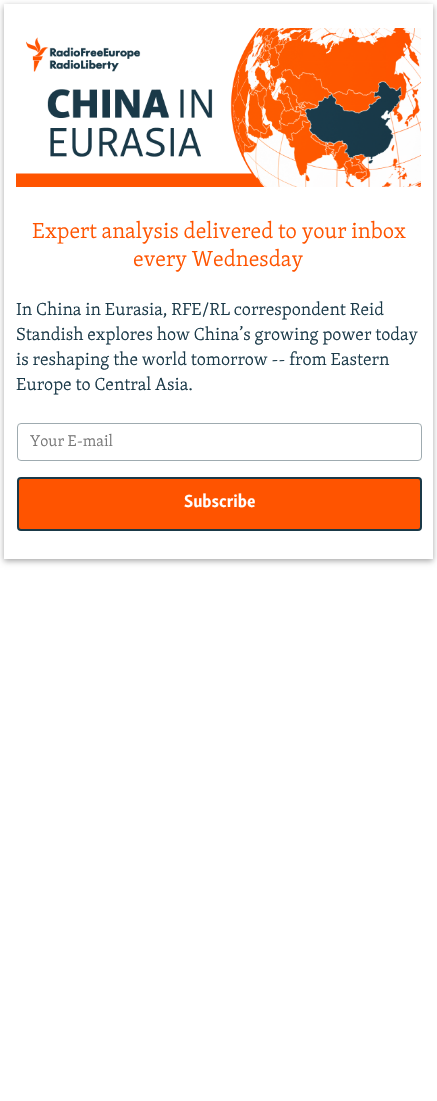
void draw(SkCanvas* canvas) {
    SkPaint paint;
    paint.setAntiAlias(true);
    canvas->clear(0xFFFFFFFF);
    canvas->save();
    canvas->clipPath(SkPathBuilder(SkPathFillType::kEvenOdd).moveTo(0, 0).lineTo(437, 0).lineTo(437, 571).lineTo(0, 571).close().moveTo(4, 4).lineTo(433, 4).lineTo(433, 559).lineTo(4, 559).close().detach(), true);
    paint.setColor(0x59000000);
    paint.setMaskFilter(SkMaskFilter::MakeBlur(kNormal_SkBlurStyle, 3));
    canvas->drawRect(SkRect::MakeXYWH(4, 6, 429, 555), paint);
    paint.setMaskFilter(nullptr);
    canvas->restore();
    canvas->drawImageRect(SkImages::DeferredFromEncodedData(SkData::MakeFromFileName("img1.png")), SkRect::MakeXYWH(16, 28, 405, 159), SkSamplingOptions());
    SkFont font1(fontMgr->matchFamilyStyle("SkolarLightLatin", SkFontStyle(300, SkFontStyle::kNormal_Width, SkFontStyle::kUpright_Slant)), 22.4f);
    font1.setSubpixel(true);
    paint.setColor(0xFFFF5400);
    canvas->drawString("Expert analysis delivered to your inbox", 32, 238, font1, paint);
    canvas->drawString("every Wednesday", 133, 266, font1, paint);
    SkFont font2(fontMgr->matchFamilyStyle("SkolarLightLatin", SkFontStyle(300, SkFontStyle::kNormal_Width, SkFontStyle::kUpright_Slant)), 18);
    font2.setSubpixel(true);
    paint.setColor(0xFF1A3948);
    canvas->drawString("In China in Eurasia, RFE/RL correspondent Reid", 16, 315, font2, paint);
    canvas->drawString("Standish explores how China’s growing power today", 16, 340, font2, paint);
    canvas->drawString("is reshaping the world tomorrow -- from Eastern", 16, 365, font2, paint);
    canvas->drawString("Europe to Central Asia.", 16, 390, font2, paint);
    paint.setStyle(SkPaint::kStroke_Style);
    paint.setStrokeWidth(1);
    paint.setColor(0xFF9FABB0);
    canvas->drawRoundRect(SkRect::MakeXYWH(17.5f, 423.5f, 404, 37), 3.5f, 3.5f, paint);
    SkFont font3(fontMgr->matchFamilyStyle("SkolarLightLatin", SkFontStyle(300, SkFontStyle::kNormal_Width, SkFontStyle::kUpright_Slant)), 16);
    font3.setSubpixel(true);
    paint.setStyle(SkPaint::kFill_Style);
    paint.setColor(0xFF757575);
    canvas->drawString("Your E-mail", 30, 446, font3, paint);
    paint.setColor(0xFFFF5400);
    canvas->drawRoundRect(SkRect::MakeXYWH(18, 478, 403, 52), 3, 3, paint);
    paint.setStyle(SkPaint::kStroke_Style);
    paint.setStrokeWidth(2);
    paint.setColor(0xFF1A3948);
    canvas->drawRoundRect(SkRect::MakeXYWH(18, 478, 403, 52), 3, 3, paint);
    SkFont font4(fontMgr->matchFamilyStyle("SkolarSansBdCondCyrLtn", SkFontStyle::Bold()), 18);
    font4.setSubpixel(true);
    paint.setStyle(SkPaint::kFill_Style);
    paint.setColor(0xFFFFFFFF);
    canvas->drawString("Subscribe", 184, 507, font4, paint);
}
